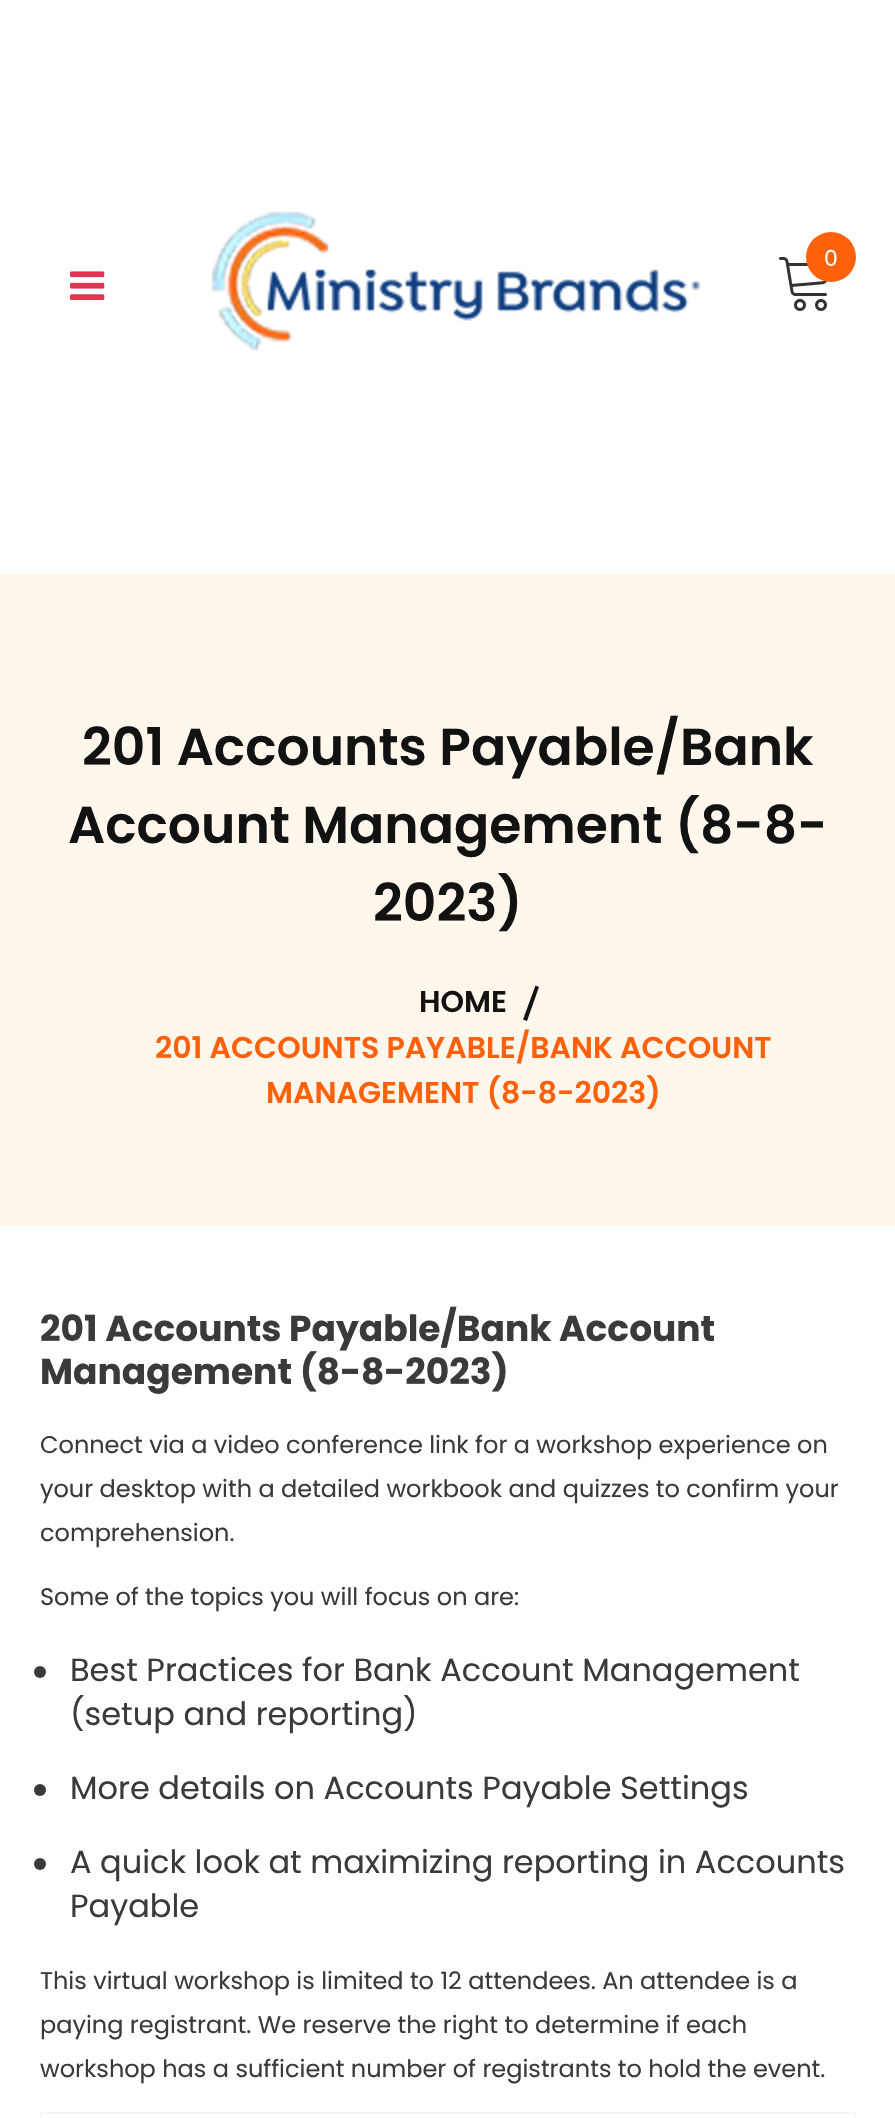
void draw(SkCanvas* canvas) {
    SkPaint paint;
    paint.setAntiAlias(true);
    canvas->clear(0xFFFFFFFF);
    canvas->drawImageRect(SkImages::DeferredFromEncodedData(SkData::MakeFromFileName("img1.png")), SkRect::MakeXYWH(211, 211, 490, 140), SkSamplingOptions());
    canvas->drawImageRect(SkImages::DeferredFromEncodedData(SkData::MakeFromFileName("img2.png")), SkRect::MakeXYWH(779, 257, 48, 54), SkSamplingOptions());
    paint.setColor(0xFFFF600A);
    canvas->drawCircle(831, 257, 25, paint);
    SkFont font1(fontMgr->matchFamilyStyle("Poppins", SkFontStyle::Normal()), 22);
    font1.setSubpixel(true);
    paint.setColor(0xFFFFFFFF);
    canvas->drawString("0", 824, 266, font1, paint);
    canvas->drawImageRect(SkImages::DeferredFromEncodedData(SkData::MakeFromFileName("img3.png")), SkRect::MakeXYWH(70, 271, 35, 29), SkSamplingOptions());
    paint.setColor(0xFFFFF7EC);
    canvas->drawRect(SkRect::MakeXYWH(0, 574, 895, 652), paint);
    SkFont font2(fontMgr->matchFamilyStyle("Poppins", SkFontStyle(600, SkFontStyle::kNormal_Width, SkFontStyle::kUpright_Slant)), 52);
    font2.setSubpixel(true);
    paint.setColor(0xFF121212);
    canvas->drawString("201 Accounts Payable/Bank", 82, 765, font2, paint);
    canvas->drawString("Account Management (8-8-", 68, 843, font2, paint);
    canvas->drawString("2023)", 373, 921, font2, paint);
    SkFont font3(fontMgr->matchFamilyStyle("Poppins", SkFontStyle(600, SkFontStyle::kNormal_Width, SkFontStyle::kUpright_Slant)), 30);
    font3.setSubpixel(true);
    canvas->drawString("HOME", 419, 1012, font3, paint);
    canvas->drawPath(SkPathBuilder().moveTo(535.5f, 985.5f).lineTo(539, 987).lineTo(527, 1021).lineTo(523, 1019.5f).close().detach(), paint);
    paint.setColor(0xFFFF600A);
    canvas->drawString("201 ACCOUNTS PAYABLE/BANK ACCOUNT", 155, 1058, font3, paint);
    canvas->drawString("MANAGEMENT (8-8-2023)", 266, 1103, font3, paint);
    SkFont font4(fontMgr->matchFamilyStyle("Poppins", SkFontStyle::Bold()), 36);
    font4.setSubpixel(true);
    paint.setColor(0xFF3A3A3A);
    canvas->drawString("201 Accounts Payable/Bank Account", 40, 1341, font4, paint);
    canvas->drawString("Management (8-8-2023)", 40, 1384, font4, paint);
    SkFont font5(fontMgr->matchFamilyStyle("Poppins", SkFontStyle::Normal()), 24);
    font5.setSubpixel(true);
    canvas->drawString("Connect via a video conference link for a workshop experience on", 40, 1453, font5, paint);
    canvas->drawString("your desktop with a detailed workbook and quizzes to confirm your", 40, 1497, font5, paint);
    canvas->drawString("comprehension.", 40, 1541, font5, paint);
    canvas->drawString("Some of the topics you will focus on are:", 40, 1605, font5, paint);
    canvas->drawCircle(40, 1672, 6, paint);
    SkFont font6(fontMgr->matchFamilyStyle("Poppins", SkFontStyle::Normal()), 32);
    font6.setSubpixel(true);
    canvas->drawString("Best Practices for Bank Account Management", 70, 1681, font6, paint);
    canvas->drawString("(setup and reporting)", 70, 1725, font6, paint);
    canvas->drawCircle(40, 1790, 6, paint);
    canvas->drawString("More details on Accounts Payable Settings", 70, 1799, font6, paint);
    canvas->drawCircle(40, 1864, 6, paint);
    canvas->drawString("A quick look at maximizing reporting in Accounts", 70, 1873, font6, paint);
    canvas->drawString("Payable", 70, 1917, font6, paint);
    canvas->drawString("This virtual workshop is limited to 12 attendees. An attendee is a", 40, 1989, font5, paint);
    canvas->drawString("paying registrant. We reserve the right to determine if each", 40, 2033, font5, paint);
    canvas->drawString("workshop has a sufficient number of registrants to hold the event.", 40, 2077, font5, paint);
    paint.setStyle(SkPaint::kStroke_Style);
    paint.setStrokeWidth(2);
    paint.setColor(0xFFF5F5F5);
    canvas->drawRect(SkRect::MakeXYWH(41, 2113, 814, 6), paint);
}
